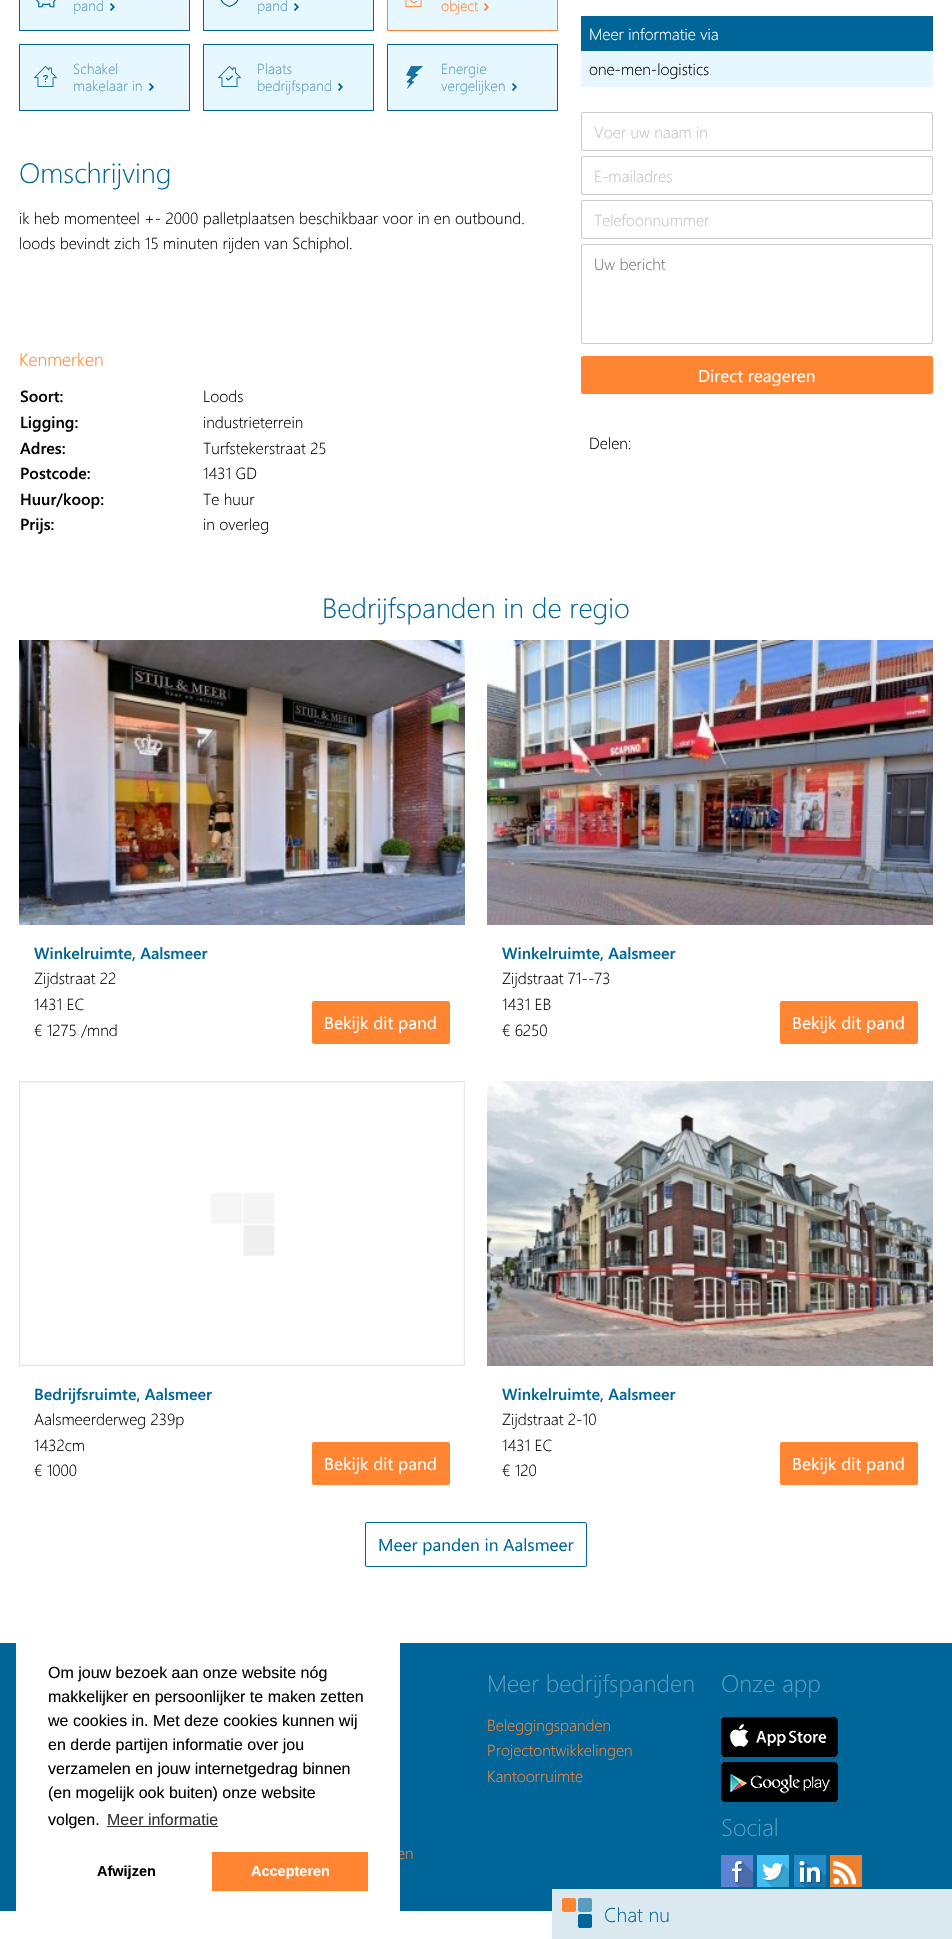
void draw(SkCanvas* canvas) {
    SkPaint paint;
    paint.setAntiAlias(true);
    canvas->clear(0xFFFFFFFF);
    paint.setColor(0xFFE7F7FF);
    canvas->drawRect(SkRect::MakeXYWH(20, 0, 169, 30), paint);
    canvas->drawImageRect(SkImages::DeferredFromEncodedData(SkData::MakeFromFileName("img1.png")), SkRect::MakeXYWH(36, 0, 20, 8), SkSamplingOptions());
    paint.setStyle(SkPaint::kStroke_Style);
    paint.setStrokeWidth(1);
    paint.setColor(0xFF006699);
    canvas->drawRect(SkRect::MakeXYWH(19.5f, -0.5f, 170, 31), paint);
    SkFont font1(fontMgr->matchFamilyStyle("Segoe UI", SkFontStyle(300, SkFontStyle::kNormal_Width, SkFontStyle::kUpright_Slant)), 14.5f);
    font1.setSubpixel(true);
    paint.setStyle(SkPaint::kFill_Style);
    paint.setColor(0xFF599EBE);
    canvas->drawString("pand", 73, 11, font1, paint);
    canvas->drawImageRect(SkImages::DeferredFromEncodedData(SkData::MakeFromFileName("img2.png")), SkRect::MakeXYWH(110, 3, 5, 8), SkSamplingOptions());
    paint.setColor(0xFFE7F7FF);
    canvas->drawRect(SkRect::MakeXYWH(204, 0, 169, 30), paint);
    canvas->drawImageRect(SkImages::DeferredFromEncodedData(SkData::MakeFromFileName("img3.png")), SkRect::MakeXYWH(220, 0, 19, 7), SkSamplingOptions());
    paint.setStyle(SkPaint::kStroke_Style);
    paint.setColor(0xFF006699);
    canvas->drawRect(SkRect::MakeXYWH(203.5f, -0.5f, 170, 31), paint);
    paint.setStyle(SkPaint::kFill_Style);
    paint.setColor(0xFF599EBE);
    canvas->drawString("pand", 257, 11, font1, paint);
    canvas->drawImageRect(SkImages::DeferredFromEncodedData(SkData::MakeFromFileName("img2.png")), SkRect::MakeXYWH(294, 3, 5, 8), SkSamplingOptions());
    paint.setColor(0xFFE7F7FF);
    canvas->drawRect(SkRect::MakeXYWH(388, 0, 169, 30), paint);
    canvas->drawImageRect(SkImages::DeferredFromEncodedData(SkData::MakeFromFileName("img4.png")), SkRect::MakeXYWH(405, 0, 17, 7), SkSamplingOptions());
    paint.setStyle(SkPaint::kStroke_Style);
    paint.setColor(0xFFFF8533);
    canvas->drawRect(SkRect::MakeXYWH(387.5f, -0.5f, 170, 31), paint);
    paint.setStyle(SkPaint::kFill_Style);
    canvas->drawString("object", 441, 11, font1, paint);
    canvas->drawImageRect(SkImages::DeferredFromEncodedData(SkData::MakeFromFileName("img5.png")), SkRect::MakeXYWH(484, 3, 5, 8), SkSamplingOptions());
    paint.setColor(0xFFE7F7FF);
    canvas->drawRect(SkRect::MakeXYWH(20, 45, 169, 65), paint);
    canvas->drawImageRect(SkImages::DeferredFromEncodedData(SkData::MakeFromFileName("img6.png")), SkRect::MakeXYWH(34, 66, 23, 21), SkSamplingOptions());
    paint.setStyle(SkPaint::kStroke_Style);
    paint.setColor(0xFF006699);
    canvas->drawRect(SkRect::MakeXYWH(19.5f, 44.5f, 170, 66), paint);
    paint.setStyle(SkPaint::kFill_Style);
    paint.setColor(0xFF599EBE);
    canvas->drawString("Schakel", 73, 74, font1, paint);
    canvas->drawString("makelaar in", 73, 91, font1, paint);
    canvas->drawImageRect(SkImages::DeferredFromEncodedData(SkData::MakeFromFileName("img2.png")), SkRect::MakeXYWH(149, 83, 5, 8), SkSamplingOptions());
    paint.setColor(0xFFE7F7FF);
    canvas->drawRect(SkRect::MakeXYWH(204, 45, 169, 65), paint);
    canvas->drawImageRect(SkImages::DeferredFromEncodedData(SkData::MakeFromFileName("img7.png")), SkRect::MakeXYWH(218, 66, 23, 21), SkSamplingOptions());
    paint.setStyle(SkPaint::kStroke_Style);
    paint.setColor(0xFF006699);
    canvas->drawRect(SkRect::MakeXYWH(203.5f, 44.5f, 170, 66), paint);
    paint.setStyle(SkPaint::kFill_Style);
    paint.setColor(0xFF599EBE);
    canvas->drawString("Plaats", 257, 74, font1, paint);
    canvas->drawString("bedrijfspand", 257, 91, font1, paint);
    canvas->drawImageRect(SkImages::DeferredFromEncodedData(SkData::MakeFromFileName("img2.png")), SkRect::MakeXYWH(338, 83, 5, 8), SkSamplingOptions());
    paint.setColor(0xFFE7F7FF);
    canvas->drawRect(SkRect::MakeXYWH(388, 45, 169, 65), paint);
    canvas->drawImageRect(SkImages::DeferredFromEncodedData(SkData::MakeFromFileName("img8.png")), SkRect::MakeXYWH(406, 66, 17, 23), SkSamplingOptions());
    paint.setStyle(SkPaint::kStroke_Style);
    paint.setColor(0xFF006699);
    canvas->drawRect(SkRect::MakeXYWH(387.5f, 44.5f, 170, 66), paint);
    paint.setStyle(SkPaint::kFill_Style);
    paint.setColor(0xFF599EBE);
    canvas->drawString("Energie", 441, 74, font1, paint);
    canvas->drawString("vergelijken", 441, 91, font1, paint);
    canvas->drawImageRect(SkImages::DeferredFromEncodedData(SkData::MakeFromFileName("img2.png")), SkRect::MakeXYWH(512, 83, 5, 8), SkSamplingOptions());
    SkFont font2(fontMgr->matchFamilyStyle("Segoe UI", SkFontStyle(300, SkFontStyle::kNormal_Width, SkFontStyle::kUpright_Slant)), 28);
    font2.setSubpixel(true);
    paint.setColor(0xFF006699);
    canvas->drawString("Omschrijving", 19, 183, font2, paint);
    SkFont font3(fontMgr->matchFamilyStyle("Segoe UI", SkFontStyle(300, SkFontStyle::kNormal_Width, SkFontStyle::kUpright_Slant)), 16);
    font3.setSubpixel(true);
    paint.setColor(0xFF000000);
    canvas->drawString("ik heb momenteel +- 2000 palletplaatsen beschikbaar voor in en outbound.", 19, 224, font3, paint);
    canvas->drawString("loods bevindt zich 15 minuten rijden van Schiphol.", 19, 249, font3, paint);
    SkFont font4(fontMgr->matchFamilyStyle("Segoe UI", SkFontStyle(300, SkFontStyle::kNormal_Width, SkFontStyle::kUpright_Slant)), 18);
    font4.setSubpixel(true);
    paint.setColor(0xFFFF8533);
    canvas->drawString("Kenmerken", 19, 366, font4, paint);
    SkFont font5(fontMgr->matchFamilyStyle("Segoe UI", SkFontStyle(600, SkFontStyle::kNormal_Width, SkFontStyle::kUpright_Slant)), 16);
    font5.setSubpixel(true);
    paint.setColor(0xFF000000);
    canvas->drawString("Soort:", 20, 402, font5, paint);
    canvas->drawString("Loods", 203, 402, font3, paint);
    canvas->drawString("Ligging:", 20, 428, font5, paint);
    canvas->drawString("industrieterrein", 203, 428, font3, paint);
    canvas->drawString("Adres:", 20, 454, font5, paint);
    canvas->drawString("Turfstekerstraat 25", 203, 454, font3, paint);
    canvas->drawString("Postcode:", 20, 479, font5, paint);
    canvas->drawString("1431 GD", 203, 479, font3, paint);
    canvas->drawString("Huur/koop:", 20, 505, font5, paint);
    canvas->drawString("Te huur", 203, 505, font3, paint);
    canvas->drawString("Prijs:", 20, 530, font5, paint);
    canvas->drawString("in overleg", 203, 530, font3, paint);
    paint.setColor(0xFF006699);
    canvas->drawRect(SkRect::MakeXYWH(581, 16, 352, 35), paint);
    paint.setColor(0xFFFFFFFF);
    canvas->drawString("Meer informatie via", 589, 40, font3, paint);
    paint.setColor(0xFFE7F7FF);
    canvas->drawRect(SkRect::MakeXYWH(581, 51, 352, 36), paint);
    paint.setColor(0xFF000000);
    canvas->drawString("one-men-logistics", 589, 75, font3, paint);
    paint.setStyle(SkPaint::kStroke_Style);
    paint.setColor(0xFFCCCCCC);
    canvas->drawRoundRect(SkRect::MakeXYWH(581.5f, 112.5f, 351, 38), 1.5f, 1.5f, paint);
    paint.setStyle(SkPaint::kFill_Style);
    paint.setColor(0xFFC4C4C4);
    canvas->drawString("Voer uw naam in", 594, 138, font3, paint);
    paint.setStyle(SkPaint::kStroke_Style);
    paint.setColor(0xFFCCCCCC);
    canvas->drawRoundRect(SkRect::MakeXYWH(581.5f, 156.5f, 351, 38), 1.5f, 1.5f, paint);
    paint.setStyle(SkPaint::kFill_Style);
    paint.setColor(0xFFC4C4C4);
    canvas->drawString("E-mailadres", 594, 182, font3, paint);
    paint.setStyle(SkPaint::kStroke_Style);
    paint.setColor(0xFFCCCCCC);
    canvas->drawRoundRect(SkRect::MakeXYWH(581.5f, 200.5f, 351, 38), 1.5f, 1.5f, paint);
    paint.setStyle(SkPaint::kFill_Style);
    paint.setColor(0xFFC4C4C4);
    canvas->drawString("Telefoonnummer", 594, 226, font3, paint);
    paint.setStyle(SkPaint::kStroke_Style);
    paint.setColor(0xFFCCCCCC);
    canvas->drawRoundRect(SkRect::MakeXYWH(581.5f, 244.5f, 351, 99), 1.5f, 1.5f, paint);
    paint.setStyle(SkPaint::kFill_Style);
    paint.setColor(0xFF757575);
    canvas->drawString("Uw bericht", 594, 270, font3, paint);
    paint.setColor(0xFFFF8533);
    canvas->drawRoundRect(SkRect::MakeXYWH(581, 356, 352, 38), 2, 2, paint);
    SkFont font6(fontMgr->matchFamilyStyle("Segoe UI", SkFontStyle::Normal()), 17.25f);
    font6.setSubpixel(true);
    paint.setColor(0xFFFFFFFF);
    canvas->drawString("Direct reageren", 698, 382, font6, paint);
    paint.setColor(0xFF000000);
    canvas->drawString("Delen:", 589, 449, font3, paint);
    paint.setColor(0xFF006699);
    canvas->drawString("Bedrijfspanden in de regio", 322, 618, font2, paint);
    canvas->drawImageRect(SkImages::DeferredFromEncodedData(SkData::MakeFromFileName("img9.png")), SkRect::MakeXYWH(19, 640, 446, 285), SkSamplingOptions());
    canvas->drawString("Winkelruimte, Aalsmeer", 34, 959, font5, paint);
    paint.setColor(0xFF000000);
    canvas->drawString("Zijdstraat 22", 34, 984, font3, paint);
    canvas->drawString("1431 EC", 34, 1010, font3, paint);
    canvas->drawString("€ 1275 /mnd", 34, 1036, font3, paint);
    paint.setColor(0xFFFF8533);
    canvas->drawRoundRect(SkRect::MakeXYWH(312, 1001, 138, 43), 2, 2, paint);
    paint.setColor(0xFFFFFFFF);
    canvas->drawString("Bekijk dit pand", 324, 1029, font6, paint);
    canvas->drawImageRect(SkImages::DeferredFromEncodedData(SkData::MakeFromFileName("img10.png")), SkRect::MakeXYWH(487, 640, 446, 285), SkSamplingOptions());
    paint.setColor(0xFF006699);
    canvas->drawString("Winkelruimte, Aalsmeer", 502, 959, font5, paint);
    paint.setColor(0xFF000000);
    canvas->drawString("Zijdstraat 71--73", 502, 984, font3, paint);
    canvas->drawString("1431 EB", 502, 1010, font3, paint);
    canvas->drawString("€ 6250", 502, 1036, font3, paint);
    paint.setColor(0xFFFF8533);
    canvas->drawRoundRect(SkRect::MakeXYWH(780, 1001, 138, 43), 2, 2, paint);
    paint.setColor(0xFFFFFFFF);
    canvas->drawString("Bekijk dit pand", 792, 1029, font6, paint);
    canvas->drawImageRect(SkImages::DeferredFromEncodedData(SkData::MakeFromFileName("img11.png")), SkRect::MakeXYWH(19, 1081, 446, 285), SkSamplingOptions());
    paint.setColor(0xFF006699);
    canvas->drawString("Bedrijfsruimte, Aalsmeer", 34, 1400, font5, paint);
    paint.setColor(0xFF000000);
    canvas->drawString("Aalsmeerderweg 239p", 34, 1425, font3, paint);
    canvas->drawString("1432cm", 34, 1451, font3, paint);
    canvas->drawString("€ 1000", 34, 1476, font3, paint);
    paint.setColor(0xFFFF8533);
    canvas->drawRoundRect(SkRect::MakeXYWH(312, 1442, 138, 43), 2, 2, paint);
    paint.setColor(0xFFFFFFFF);
    canvas->drawString("Bekijk dit pand", 324, 1470, font6, paint);
    canvas->drawImageRect(SkImages::DeferredFromEncodedData(SkData::MakeFromFileName("img12.png")), SkRect::MakeXYWH(487, 1081, 446, 285), SkSamplingOptions());
    paint.setColor(0xFF006699);
    canvas->drawString("Winkelruimte, Aalsmeer", 502, 1400, font5, paint);
    paint.setColor(0xFF000000);
    canvas->drawString("Zijdstraat 2-10", 502, 1425, font3, paint);
    canvas->drawString("1431 EC", 502, 1451, font3, paint);
    canvas->drawString("€ 120", 502, 1476, font3, paint);
    paint.setColor(0xFFFF8533);
    canvas->drawRoundRect(SkRect::MakeXYWH(780, 1442, 138, 43), 2, 2, paint);
    paint.setColor(0xFFFFFFFF);
    canvas->drawString("Bekijk dit pand", 792, 1470, font6, paint);
    paint.setStyle(SkPaint::kStroke_Style);
    paint.setColor(0xFF006699);
    canvas->drawRoundRect(SkRect::MakeXYWH(365.5f, 1522.5f, 221, 44), 1.5f, 1.5f, paint);
    paint.setStyle(SkPaint::kFill_Style);
    canvas->drawString("Meer panden in Aalsmeer", 378, 1551, font6, paint);
    canvas->drawRect(SkRect::MakeXYWH(0, 1643, 952, 268), paint);
    SkFont font7(fontMgr->matchFamilyStyle("Segoe UI", SkFontStyle(300, SkFontStyle::kNormal_Width, SkFontStyle::kUpright_Slant)), 24);
    font7.setSubpixel(true);
    paint.setColor(0xFF599EBE);
    canvas->drawString("Meer bedrijfspanden", 487, 1692, font7, paint);
    paint.setColor(0xFFFF8533);
    canvas->drawString("Beleggingspanden", 487, 1731, font3, paint);
    canvas->drawString("Projectontwikkelingen", 487, 1756, font3, paint);
    canvas->drawString("Kantoorruimte", 487, 1782, font3, paint);
    paint.setColor(0xFF599EBE);
    canvas->drawString("Onze app", 721, 1692, font7, paint);
    canvas->drawImageRect(SkImages::DeferredFromEncodedData(SkData::MakeFromFileName("img13.png")), SkRect::MakeXYWH(721, 1717, 117, 40), SkSamplingOptions());
    canvas->drawImageRect(SkImages::DeferredFromEncodedData(SkData::MakeFromFileName("img14.png")), SkRect::MakeXYWH(721, 1762, 117, 40), SkSamplingOptions());
    canvas->drawString("Social", 721, 1836, font7, paint);
    canvas->drawImageRect(SkImages::DeferredFromEncodedData(SkData::MakeFromFileName("img15.png")), SkRect::MakeXYWH(721, 1855, 32, 32), SkSamplingOptions());
    canvas->drawImageRect(SkImages::DeferredFromEncodedData(SkData::MakeFromFileName("img16.png")), SkRect::MakeXYWH(757, 1855, 32, 32), SkSamplingOptions());
    canvas->drawImageRect(SkImages::DeferredFromEncodedData(SkData::MakeFromFileName("img17.png")), SkRect::MakeXYWH(794, 1855, 32, 32), SkSamplingOptions());
    canvas->drawImageRect(SkImages::DeferredFromEncodedData(SkData::MakeFromFileName("img18.png")), SkRect::MakeXYWH(830, 1855, 32, 32), SkSamplingOptions());
    paint.setColor(0xFFFF8533);
    canvas->drawString("en", 397, 1859, font3, paint);
    paint.setColor(0xFFFFFFFF);
    canvas->drawRect(SkRect::MakeXYWH(16, 1643, 384, 268), paint);
    SkFont font8(fontMgr->matchFamilyStyle("Liberation Sans", SkFontStyle::Normal()), 16);
    font8.setSubpixel(true);
    paint.setColor(0xFF000000);
    canvas->drawString("Om jouw bezoek aan onze website nóg", 48, 1678, font8, paint);
    canvas->drawString("makkelijker en persoonlijker te maken zetten", 48, 1702, font8, paint);
    canvas->drawString("we cookies in. Met deze cookies kunnen wij", 48, 1726, font8, paint);
    canvas->drawString("en derde partijen informatie over jou", 48, 1750, font8, paint);
    canvas->drawString("verzamelen en jouw internetgedrag binnen", 48, 1774, font8, paint);
    canvas->drawString("(en mogelijk ook buiten) onze website", 48, 1798, font8, paint);
    canvas->drawString("volgen.", 48, 1825, font8, paint);
    paint.setColor(0xFF333333);
    canvas->drawString("Meer informatie", 107, 1825, font8, paint);
    canvas->drawRect(SkRect::MakeXYWH(107, 1826, 111, 1), paint);
    SkFont font9(fontMgr->matchFamilyStyle("Liberation Sans", SkFontStyle::Bold()), 14.5f);
    font9.setSubpixel(true);
    paint.setColor(0xFF000000);
    canvas->drawString("Afwijzen", 97, 1876, font9, paint);
    paint.setColor(0xFFFF8533);
    canvas->drawRect(SkRect::MakeXYWH(212, 1852, 156, 39), paint);
    paint.setColor(0xFFFFFFFF);
    canvas->drawString("Accepteren", 251, 1876, font9, paint);
    paint.setColor(0xFFDAE9F0);
    canvas->drawRect(SkRect::MakeXYWH(552, 1889, 400, 50), paint);
    canvas->drawImageRect(SkImages::DeferredFromEncodedData(SkData::MakeFromFileName("img19.png")), SkRect::MakeXYWH(562, 1898, 30, 30), SkSamplingOptions());
    SkFont font10(fontMgr->matchFamilyStyle("Segoe UI", SkFontStyle(300, SkFontStyle::kNormal_Width, SkFontStyle::kUpright_Slant)), 20);
    font10.setSubpixel(true);
    paint.setColor(0xFF006699);
    canvas->drawString("Chat nu", 604, 1922, font10, paint);
}
